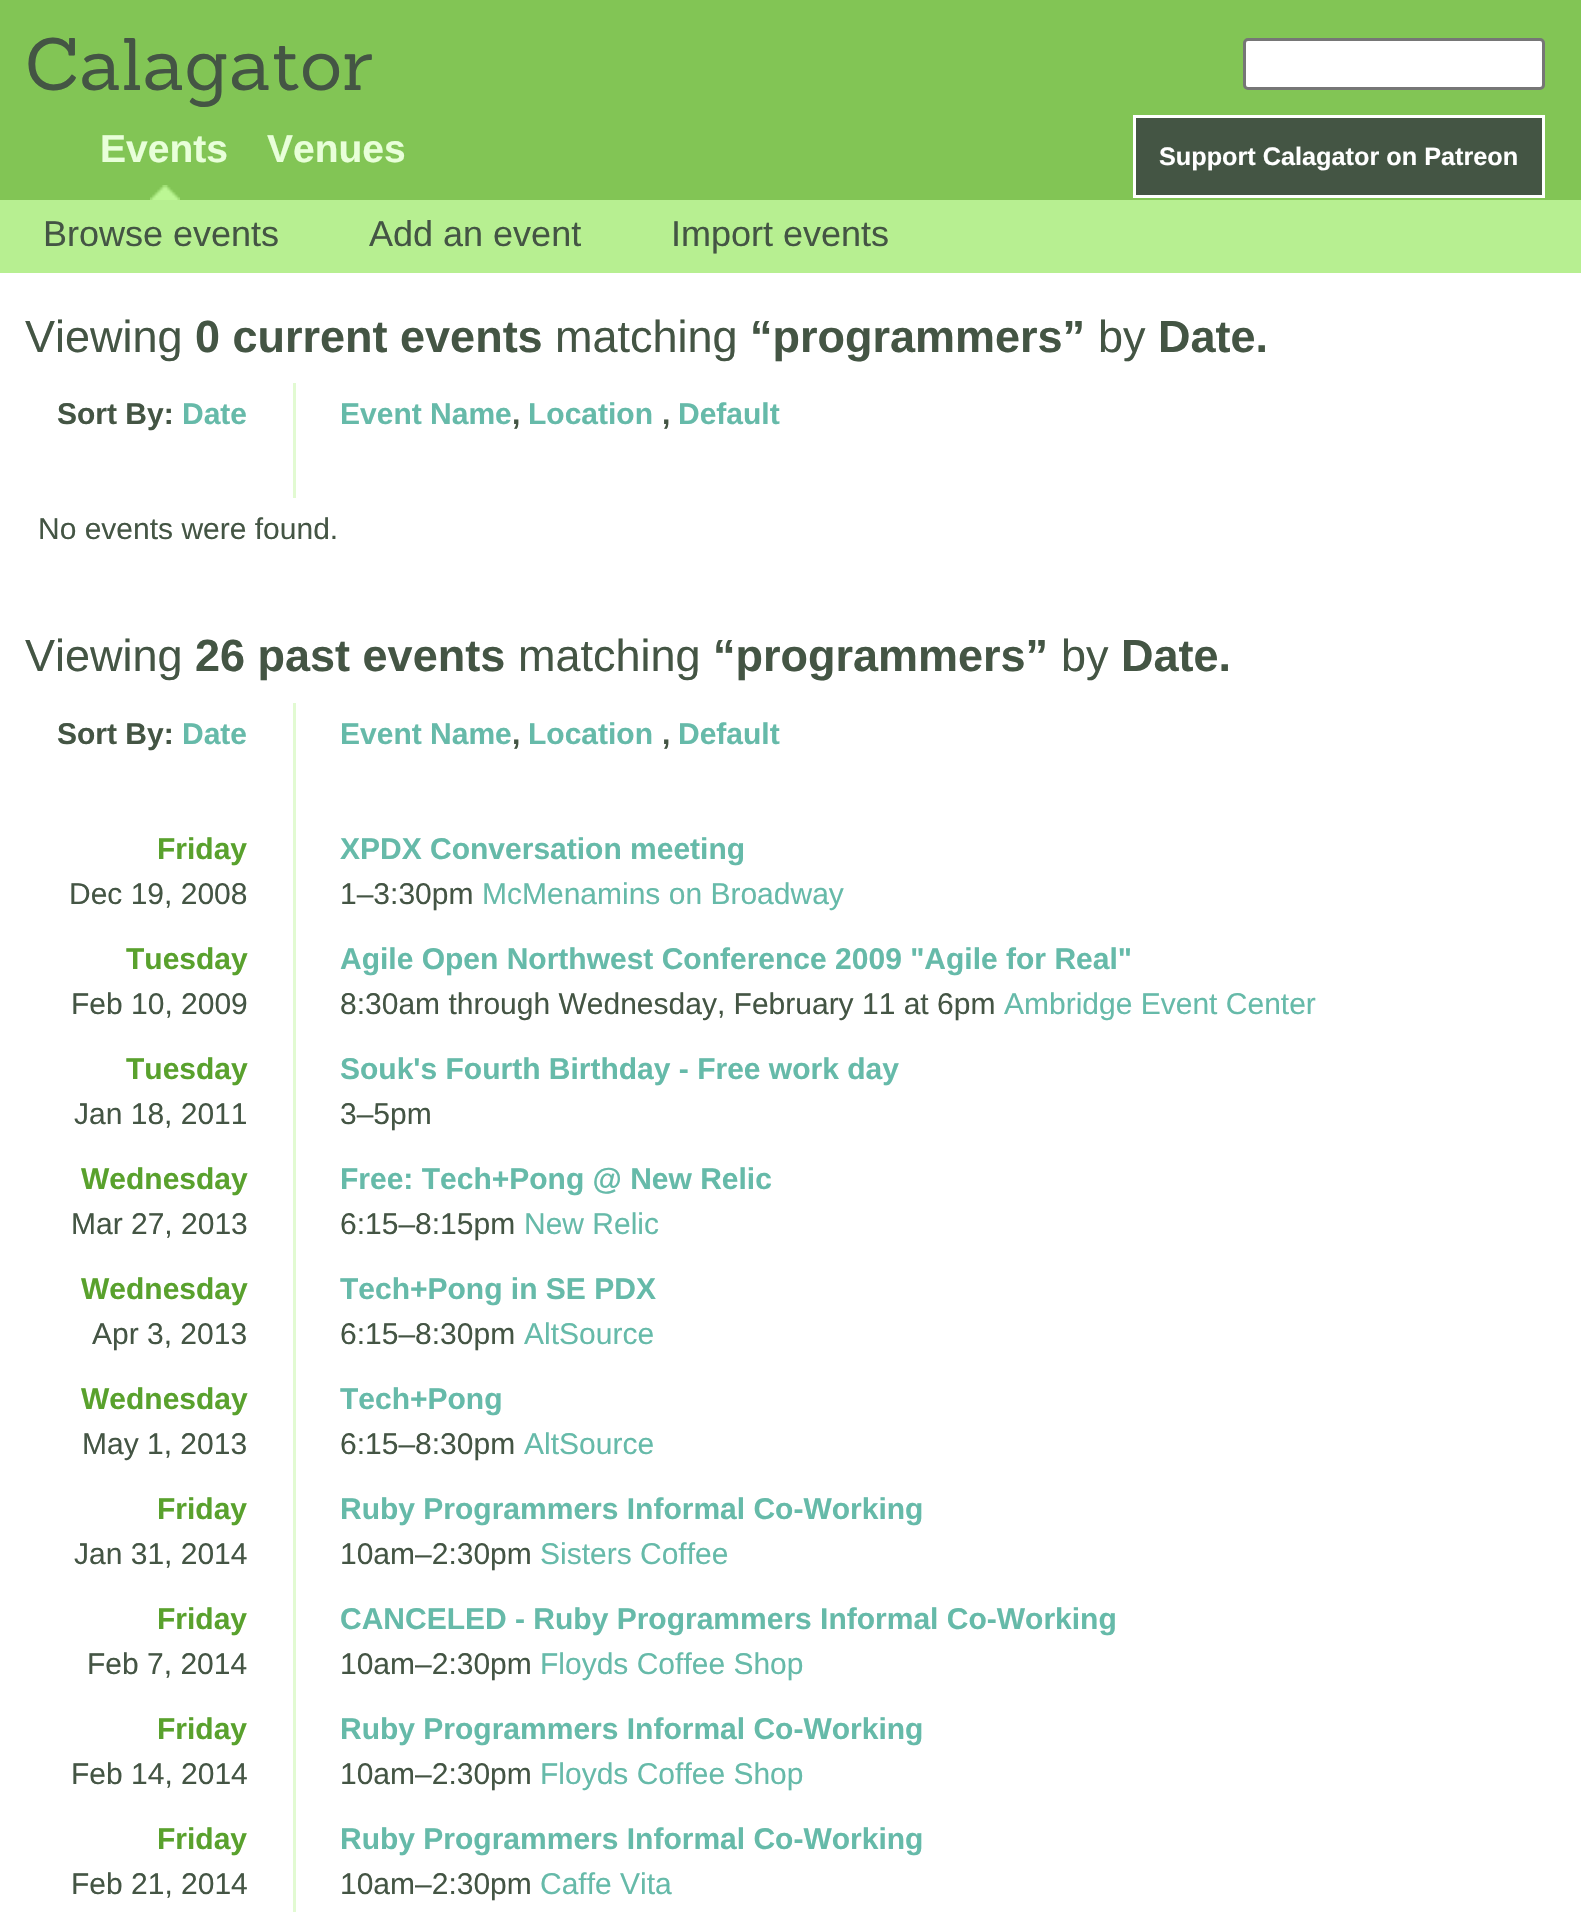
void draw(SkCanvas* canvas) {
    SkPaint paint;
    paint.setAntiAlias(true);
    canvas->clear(0xFFFFFFFF);
    paint.setColor(0xFF82C555);
    canvas->drawRect(SkRect::MakeXYWH(0, 0, 1581, 200), paint);
    SkFont font1(fontMgr->matchFamilyStyle("Sanchez", SkFontStyle::Normal()), 72.5f);
    font1.setSubpixel(true);
    paint.setColor(0xFF445544);
    canvas->drawString("Calagator", 25, 90, font1, paint);
    paint.setColor(0xFFFFFFFF);
    canvas->drawRoundRect(SkRect::MakeXYWH(1244.5f, 39.5f, 299, 49), 3.5f, 3.5f, paint);
    paint.setStyle(SkPaint::kStroke_Style);
    paint.setStrokeWidth(3);
    paint.setColor(0xFF767676);
    canvas->drawRoundRect(SkRect::MakeXYWH(1244.5f, 39.5f, 299, 49), 3.5f, 3.5f, paint);
    canvas->drawImageRect(SkImages::DeferredFromEncodedData(SkData::MakeFromFileName("img1.png")), SkRect::MakeXYWH(150, 185, 30, 15), SkSamplingOptions());
    SkFont font2(fontMgr->matchFamilyStyle("Liberation Sans", SkFontStyle::Bold()), 39);
    font2.setSubpixel(true);
    paint.setStyle(SkPaint::kFill_Style);
    paint.setColor(0xFFE8FFD9);
    canvas->drawString("Events", 100, 162, font2, paint);
    canvas->drawString("Venues", 267, 162, font2, paint);
    paint.setColor(0xFF445544);
    canvas->drawRect(SkRect::MakeXYWH(1134.5f, 116.5f, 409, 80), paint);
    paint.setStyle(SkPaint::kStroke_Style);
    paint.setColor(0xFFFFFFFF);
    canvas->drawRect(SkRect::MakeXYWH(1134.5f, 116.5f, 409, 80), paint);
    SkFont font3(fontMgr->matchFamilyStyle("Liberation Sans", SkFontStyle::Bold()), 25.25f);
    font3.setSubpixel(true);
    paint.setStyle(SkPaint::kFill_Style);
    canvas->drawString("Support Calagator on Patreon", 1159, 165, font3, paint);
    paint.setColor(0xFFB7EF91);
    canvas->drawRect(SkRect::MakeXYWH(0, 200, 1581, 73), paint);
    SkFont font4(fontMgr->matchFamilyStyle("Liberation Sans", SkFontStyle::Normal()), 36);
    font4.setSubpixel(true);
    paint.setColor(0xFF445544);
    canvas->drawString("Browse events", 43, 246, font4, paint);
    canvas->drawString("Add an event", 369, 246, font4, paint);
    canvas->drawString("Import events", 671, 246, font4, paint);
    SkFont font5(fontMgr->matchFamilyStyle("Liberation Sans", SkFontStyle::Normal()), 45);
    font5.setSubpixel(true);
    canvas->drawString("Viewing", 25, 352, font5, paint);
    SkFont font6(fontMgr->matchFamilyStyle("Liberation Sans", SkFontStyle::Bold()), 45);
    font6.setSubpixel(true);
    canvas->drawString("0 current events", 195, 352, font6, paint);
    canvas->drawString("matching", 555, 352, font5, paint);
    canvas->drawString("“programmers”", 750, 352, font6, paint);
    canvas->drawString("by", 1098, 352, font5, paint);
    canvas->drawString("Date.", 1158, 352, font6, paint);
    paint.setColor(0xFFE2FAD2);
    canvas->drawRect(SkRect::MakeXYWH(293, 383, 3, 115), paint);
    SkFont font7(fontMgr->matchFamilyStyle("Liberation Sans", SkFontStyle::Bold()), 30);
    font7.setSubpixel(true);
    paint.setColor(0xFF445544);
    canvas->drawString("Sort By:", 57, 424, font7, paint);
    paint.setColor(0xFF66BAA9);
    canvas->drawString("Date", 182, 424, font7, paint);
    canvas->drawString("Event Name", 340, 424, font7, paint);
    paint.setColor(0xFF445544);
    canvas->drawString(",", 512, 424, font7, paint);
    paint.setColor(0xFF66BAA9);
    canvas->drawString("Location", 528, 424, font7, paint);
    paint.setColor(0xFF445544);
    canvas->drawString(",", 662, 424, font7, paint);
    paint.setColor(0xFF66BAA9);
    canvas->drawString("Default", 678, 424, font7, paint);
    SkFont font8(fontMgr->matchFamilyStyle("Liberation Sans", SkFontStyle::Normal()), 30);
    font8.setSubpixel(true);
    paint.setColor(0xFF445544);
    canvas->drawString("No events were found.", 38, 539, font8, paint);
    canvas->drawString("Viewing", 25, 671, font5, paint);
    canvas->drawString("26 past events", 195, 671, font6, paint);
    canvas->drawString("matching", 518, 671, font5, paint);
    canvas->drawString("“programmers”", 713, 671, font6, paint);
    canvas->drawString("by", 1061, 671, font5, paint);
    canvas->drawString("Date.", 1121, 671, font6, paint);
    paint.setColor(0xFFE2FAD2);
    canvas->drawRect(SkRect::MakeXYWH(293, 703, 3, 1209), paint);
    paint.setColor(0xFF445544);
    canvas->drawString("Sort By:", 57, 744, font7, paint);
    paint.setColor(0xFF66BAA9);
    canvas->drawString("Date", 182, 744, font7, paint);
    canvas->drawString("Event Name", 340, 744, font7, paint);
    paint.setColor(0xFF445544);
    canvas->drawString(",", 512, 744, font7, paint);
    paint.setColor(0xFF66BAA9);
    canvas->drawString("Location", 528, 744, font7, paint);
    paint.setColor(0xFF445544);
    canvas->drawString(",", 662, 744, font7, paint);
    paint.setColor(0xFF66BAA9);
    canvas->drawString("Default", 678, 744, font7, paint);
    paint.setColor(0xFF59A12D);
    canvas->drawString("Friday", 157, 859, font7, paint);
    paint.setColor(0xFF445544);
    canvas->drawString("Dec 19, 2008", 69, 904, font8, paint);
    paint.setColor(0xFF66BAA9);
    canvas->drawString("XPDX Conversation meeting", 340, 859, font7, paint);
    paint.setColor(0xFF445544);
    canvas->drawString("1–3:30pm", 340, 904, font8, paint);
    paint.setColor(0xFF66BAA9);
    canvas->drawString("McMenamins on Broadway", 482, 904, font8, paint);
    paint.setColor(0xFF59A12D);
    canvas->drawString("Tuesday", 126, 969, font7, paint);
    paint.setColor(0xFF445544);
    canvas->drawString("Feb 10, 2009", 71, 1014, font8, paint);
    paint.setColor(0xFF66BAA9);
    canvas->drawString("Agile Open Northwest Conference 2009 \"Agile for Real\"", 340, 969, font7, paint);
    paint.setColor(0xFF445544);
    canvas->drawString("8:30am through Wednesday, February 11 at 6pm", 340, 1014, font8, paint);
    paint.setColor(0xFF66BAA9);
    canvas->drawString("Ambridge Event Center", 1004, 1014, font8, paint);
    paint.setColor(0xFF59A12D);
    canvas->drawString("Tuesday", 126, 1079, font7, paint);
    paint.setColor(0xFF445544);
    canvas->drawString("Jan 18, 2011", 74, 1124, font8, paint);
    paint.setColor(0xFF66BAA9);
    canvas->drawString("Souk's Fourth Birthday - Free work day", 340, 1079, font7, paint);
    paint.setColor(0xFF445544);
    canvas->drawString("3–5pm", 340, 1124, font8, paint);
    paint.setColor(0xFF59A12D);
    canvas->drawString("Wednesday", 81, 1189, font7, paint);
    paint.setColor(0xFF445544);
    canvas->drawString("Mar 27, 2013", 71, 1234, font8, paint);
    paint.setColor(0xFF66BAA9);
    canvas->drawString("Free: Tech+Pong @ New Relic", 340, 1189, font7, paint);
    paint.setColor(0xFF445544);
    canvas->drawString("6:15–8:15pm", 340, 1234, font8, paint);
    paint.setColor(0xFF66BAA9);
    canvas->drawString("New Relic", 524, 1234, font8, paint);
    paint.setColor(0xFF59A12D);
    canvas->drawString("Wednesday", 81, 1299, font7, paint);
    paint.setColor(0xFF445544);
    canvas->drawString("Apr 3, 2013", 92, 1344, font8, paint);
    paint.setColor(0xFF66BAA9);
    canvas->drawString("Tech+Pong in SE PDX", 340, 1299, font7, paint);
    paint.setColor(0xFF445544);
    canvas->drawString("6:15–8:30pm", 340, 1344, font8, paint);
    paint.setColor(0xFF66BAA9);
    canvas->drawString("AltSource", 524, 1344, font8, paint);
    paint.setColor(0xFF59A12D);
    canvas->drawString("Wednesday", 81, 1409, font7, paint);
    paint.setColor(0xFF445544);
    canvas->drawString("May 1, 2013", 82, 1454, font8, paint);
    paint.setColor(0xFF66BAA9);
    canvas->drawString("Tech+Pong", 340, 1409, font7, paint);
    paint.setColor(0xFF445544);
    canvas->drawString("6:15–8:30pm", 340, 1454, font8, paint);
    paint.setColor(0xFF66BAA9);
    canvas->drawString("AltSource", 524, 1454, font8, paint);
    paint.setColor(0xFF59A12D);
    canvas->drawString("Friday", 157, 1519, font7, paint);
    paint.setColor(0xFF445544);
    canvas->drawString("Jan 31, 2014", 74, 1564, font8, paint);
    paint.setColor(0xFF66BAA9);
    canvas->drawString("Ruby Programmers Informal Co-Working", 340, 1519, font7, paint);
    paint.setColor(0xFF445544);
    canvas->drawString("10am–2:30pm", 340, 1564, font8, paint);
    paint.setColor(0xFF66BAA9);
    canvas->drawString("Sisters Coffee", 540, 1564, font8, paint);
    paint.setColor(0xFF59A12D);
    canvas->drawString("Friday", 157, 1629, font7, paint);
    paint.setColor(0xFF445544);
    canvas->drawString("Feb 7, 2014", 87, 1674, font8, paint);
    paint.setColor(0xFF66BAA9);
    canvas->drawString("CANCELED - Ruby Programmers Informal Co-Working", 340, 1629, font7, paint);
    paint.setColor(0xFF445544);
    canvas->drawString("10am–2:30pm", 340, 1674, font8, paint);
    paint.setColor(0xFF66BAA9);
    canvas->drawString("Floyds Coffee Shop", 540, 1674, font8, paint);
    paint.setColor(0xFF59A12D);
    canvas->drawString("Friday", 157, 1739, font7, paint);
    paint.setColor(0xFF445544);
    canvas->drawString("Feb 14, 2014", 71, 1784, font8, paint);
    paint.setColor(0xFF66BAA9);
    canvas->drawString("Ruby Programmers Informal Co-Working", 340, 1739, font7, paint);
    paint.setColor(0xFF445544);
    canvas->drawString("10am–2:30pm", 340, 1784, font8, paint);
    paint.setColor(0xFF66BAA9);
    canvas->drawString("Floyds Coffee Shop", 540, 1784, font8, paint);
    paint.setColor(0xFF59A12D);
    canvas->drawString("Friday", 157, 1849, font7, paint);
    paint.setColor(0xFF445544);
    canvas->drawString("Feb 21, 2014", 71, 1894, font8, paint);
    paint.setColor(0xFF66BAA9);
    canvas->drawString("Ruby Programmers Informal Co-Working", 340, 1849, font7, paint);
    paint.setColor(0xFF445544);
    canvas->drawString("10am–2:30pm", 340, 1894, font8, paint);
    paint.setColor(0xFF66BAA9);
    canvas->drawString("Caffe Vita", 540, 1894, font8, paint);
}
